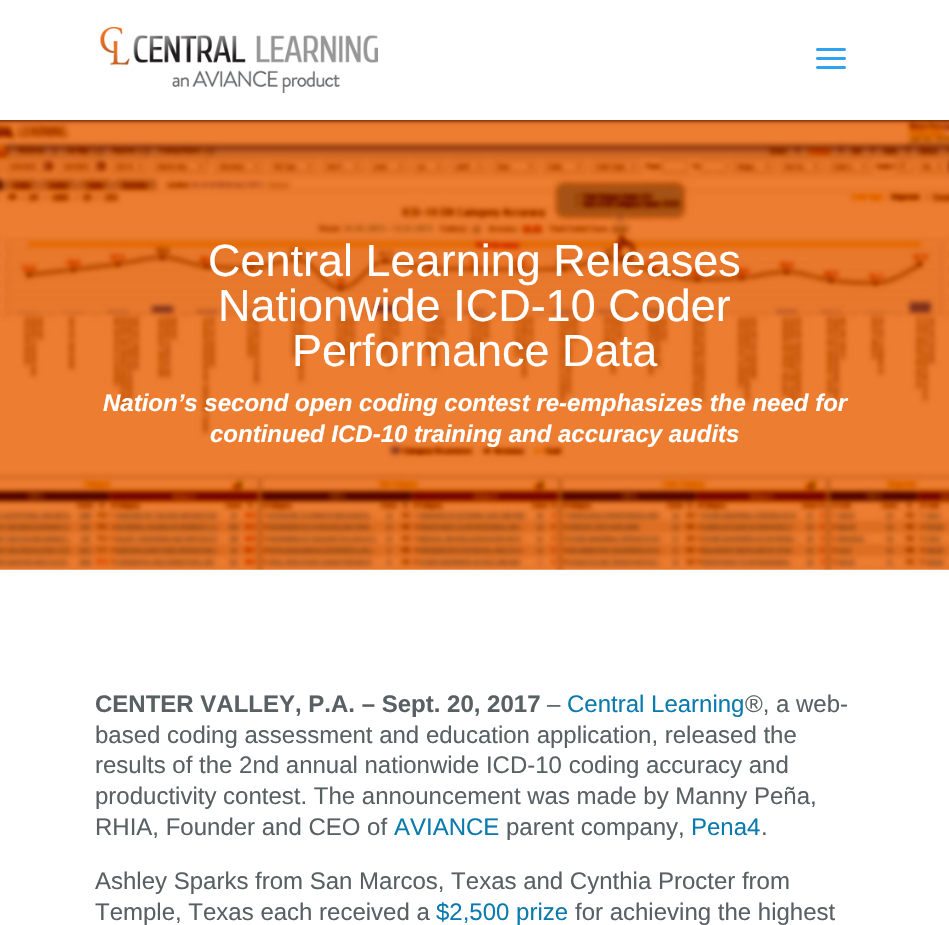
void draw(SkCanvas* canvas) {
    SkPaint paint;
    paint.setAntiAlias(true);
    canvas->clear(0xFFFFFFFF);
    canvas->drawImageRect(SkImages::DeferredFromEncodedData(SkData::MakeFromFileName("img3.png")), SkRect::MakeXYWH(0, 120, 949, 450), SkSamplingOptions());
    paint.setColor(0x1A000000);
    canvas->drawPath(SkPathBuilder().moveTo(0, 120).lineTo(0, 122).lineTo(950, 122).lineTo(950, 2).lineTo(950, 120).close().detach(), paint);
    canvas->drawImageRect(SkImages::DeferredFromEncodedData(SkData::MakeFromFileName("img1.png")), SkRect::MakeXYWH(100, 27, 278, 66), SkSamplingOptions());
    canvas->drawImageRect(SkImages::DeferredFromEncodedData(SkData::MakeFromFileName("img2.png")), SkRect::MakeXYWH(816, 48, 30, 21), SkSamplingOptions());
    SkFont font1(fontMgr->matchFamilyStyle("Liberation Sans", SkFontStyle::Normal()), 45);
    font1.setSubpixel(true);
    paint.setColor(0xFFFFFFFF);
    canvas->drawString("Central Learning Releases", 208, 276, font1, paint);
    canvas->drawString("Nationwide ICD-10 Coder", 218, 321, font1, paint);
    canvas->drawString("Performance Data", 292, 366, font1, paint);
    SkFont font2(fontMgr->matchFamilyStyle("Liberation Sans", SkFontStyle::BoldItalic()), 24);
    font2.setSubpixel(true);
    canvas->drawString("Nation’s second open coding contest re-emphasizes the need for", 103, 411, font2, paint);
    canvas->drawString("continued ICD-10 training and accuracy audits", 210, 442, font2, paint);
    SkFont font3(fontMgr->matchFamilyStyle("Liberation Sans", SkFontStyle::Bold()), 24);
    font3.setSubpixel(true);
    paint.setColor(0xFF586064);
    canvas->drawString("CENTER VALLEY, P.A. – Sept. 20, 2017", 95, 712, font3, paint);
    SkFont font4(fontMgr->matchFamilyStyle("Liberation Sans", SkFontStyle::Normal()), 24);
    font4.setSubpixel(true);
    canvas->drawString("–", 547, 712, font4, paint);
    paint.setColor(0xFF0B7AAE);
    canvas->drawString("Central Learning", 567, 712, font4, paint);
    paint.setColor(0xFF586064);
    canvas->drawString("®, a web-", 745, 712, font4, paint);
    canvas->drawString("based coding assessment and education application, released the", 95, 743, font4, paint);
    canvas->drawString("results of the 2nd annual nationwide ICD-10 coding accuracy and", 95, 773, font4, paint);
    canvas->drawString("productivity contest. The announcement was made by Manny Peña,", 95, 804, font4, paint);
    canvas->drawString("RHIA, Founder and CEO of", 95, 835, font4, paint);
    paint.setColor(0xFF0B7AAE);
    canvas->drawString("AVIANCE", 394, 835, font4, paint);
    paint.setColor(0xFF586064);
    canvas->drawString("parent company,", 506, 835, font4, paint);
    paint.setColor(0xFF0B7AAE);
    canvas->drawString("Pena4", 691, 835, font4, paint);
    paint.setColor(0xFF586064);
    canvas->drawString(".", 761, 835, font4, paint);
    canvas->drawString("Ashley Sparks from San Marcos, Texas and Cynthia Procter from", 95, 889, font4, paint);
    canvas->drawString("Temple, Texas each received a", 95, 920, font4, paint);
    paint.setColor(0xFF0B7AAE);
    canvas->drawString("$2,500 prize", 436, 920, font4, paint);
    paint.setColor(0xFF586064);
    canvas->drawString("for achieving the highest", 575, 920, font4, paint);
}
